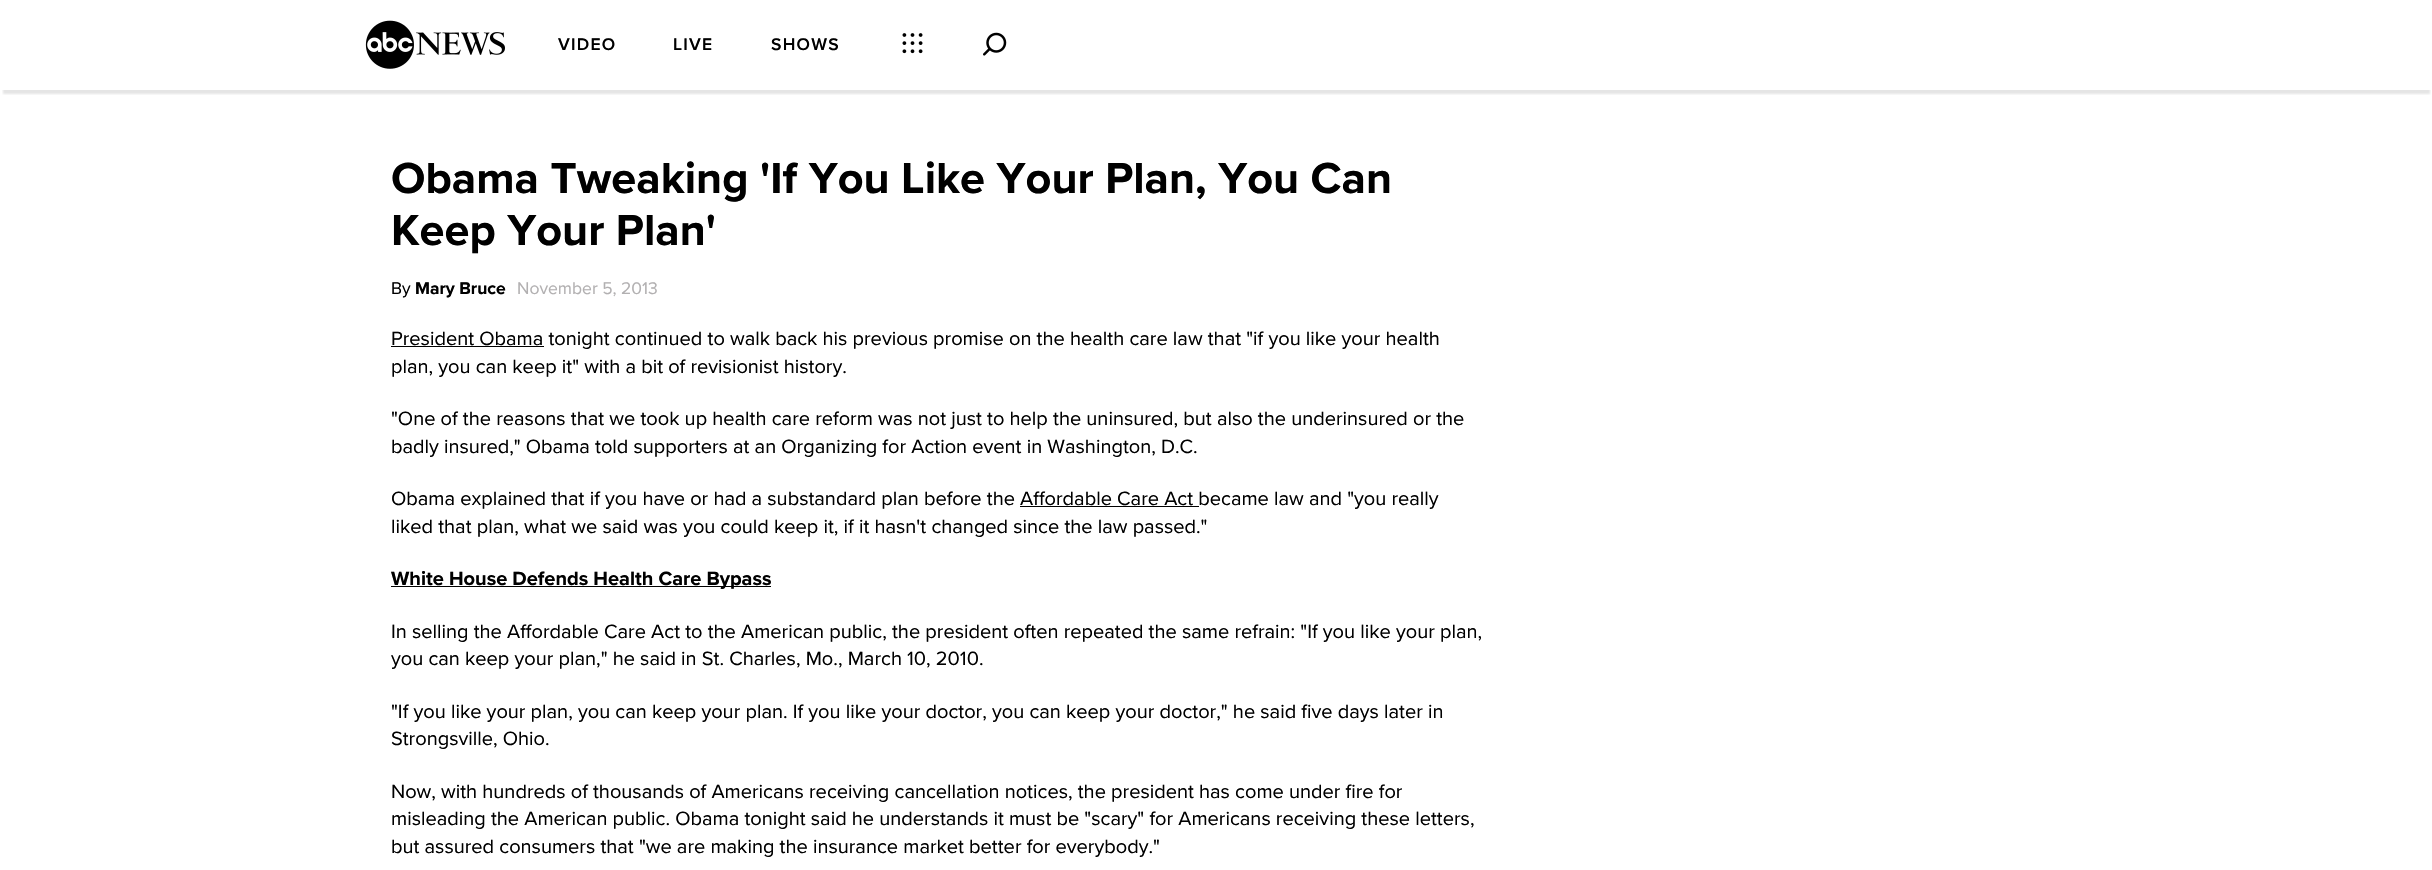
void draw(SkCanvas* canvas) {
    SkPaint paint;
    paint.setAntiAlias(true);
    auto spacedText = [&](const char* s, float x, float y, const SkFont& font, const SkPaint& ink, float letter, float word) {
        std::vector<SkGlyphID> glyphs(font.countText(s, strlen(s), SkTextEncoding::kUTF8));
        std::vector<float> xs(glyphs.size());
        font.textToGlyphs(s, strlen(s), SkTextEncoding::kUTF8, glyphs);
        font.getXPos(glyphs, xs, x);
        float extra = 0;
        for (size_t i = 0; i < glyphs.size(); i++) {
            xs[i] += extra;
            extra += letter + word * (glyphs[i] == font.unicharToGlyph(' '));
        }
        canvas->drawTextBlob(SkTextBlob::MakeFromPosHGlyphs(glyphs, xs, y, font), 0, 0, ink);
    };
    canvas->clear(0xFFFFFFFF);
    canvas->save();
    canvas->clipRect(SkRect::MakeXYWH(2, 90, 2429, 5));
    paint.setColor(0x1A000000);
    paint.setMaskFilter(SkMaskFilter::MakeBlur(kNormal_SkBlurStyle, 1));
    canvas->drawRect(SkRect::MakeXYWH(3, 9, 2427, 85), paint);
    paint.setMaskFilter(nullptr);
    canvas->restore();
    canvas->drawImageRect(SkImages::DeferredFromEncodedData(SkData::MakeFromFileName("img1.png")), SkRect::MakeXYWH(365, 20, 140, 49), SkSamplingOptions());
    SkFont font1(fontMgr->matchFamilyStyle("Proxima Nova", SkFontStyle(600, SkFontStyle::kNormal_Width, SkFontStyle::kUpright_Slant)), 17.5f);
    font1.setSubpixel(true);
    paint.setColor(0xFF000000);
    spacedText("VIDEO", 558, 50, font1, paint, 1.25f, 0);
    spacedText("LIVE", 673, 50, font1, paint, 1.25f, 0);
    spacedText("SHOWS", 771, 50, font1, paint, 1.25f, 0);
    canvas->drawImageRect(SkImages::DeferredFromEncodedData(SkData::MakeFromFileName("img2.png")), SkRect::MakeXYWH(902, 33, 21, 21), SkSamplingOptions());
    canvas->drawImageRect(SkImages::DeferredFromEncodedData(SkData::MakeFromFileName("img3.png")), SkRect::MakeXYWH(983, 32, 24, 24), SkSamplingOptions());
    SkFont font2(fontMgr->matchFamilyStyle("Proxima Nova", SkFontStyle::Bold()), 45);
    font2.setSubpixel(true);
    canvas->drawString("Obama Tweaking 'If You Like Your Plan, You Can", 391, 193, font2, paint);
    canvas->drawString("Keep Your Plan'", 391, 245, font2, paint);
    SkFont font3(fontMgr->matchFamilyStyle("Proxima Nova", SkFontStyle::Normal()), 17.5f);
    font3.setSubpixel(true);
    canvas->drawString("By", 391, 294, font3, paint);
    SkFont font4(fontMgr->matchFamilyStyle("Proxima Nova", SkFontStyle::Bold()), 17.5f);
    font4.setSubpixel(true);
    canvas->drawString("Mary Bruce", 415, 294, font4, paint);
    paint.setColor(0xFFB2B0B1);
    canvas->drawString("November 5, 2013", 517, 294, font3, paint);
    paint.setColor(0xFF000000);
    canvas->drawRect(SkRect::MakeXYWH(391, 346, 153, 1), paint);
    SkFont font5(fontMgr->matchFamilyStyle("Proxima Nova", SkFontStyle::Normal()), 20);
    font5.setSubpixel(true);
    canvas->drawString("President Obama tonight continued to walk back his previous promise on the health care law that \"if you like your health", 391, 345, font5, paint);
    canvas->drawString("plan, you can keep it\" with a bit of revisionist history.", 391, 373, font5, paint);
    canvas->drawString("\"One of the reasons that we took up health care reform was not just to help the uninsured, but also the underinsured or the", 391, 425, font5, paint);
    canvas->drawString("badly insured,\" Obama told supporters at an Organizing for Action event in Washington, D.C.", 391, 453, font5, paint);
    canvas->drawString("Obama explained that if you have or had a substandard plan before the Affordable Care Act became law and \"you really", 391, 505, font5, paint);
    canvas->drawRect(SkRect::MakeXYWH(1020, 506, 179, 1), paint);
    canvas->drawString("liked that plan, what we said was you could keep it, if it hasn't changed since the law passed.\"", 391, 533, font5, paint);
    canvas->drawRect(SkRect::MakeXYWH(391, 586, 380, 1), paint);
    SkFont font6(fontMgr->matchFamilyStyle("Proxima Nova", SkFontStyle::Bold()), 20);
    font6.setSubpixel(true);
    canvas->drawString("White House Defends Health Care Bypass", 391, 585, font6, paint);
    canvas->drawString("In selling the Affordable Care Act to the American public, the president often repeated the same refrain: \"If you like your plan,", 391, 638, font5, paint);
    canvas->drawString("you can keep your plan,\" he said in St. Charles, Mo., March 10, 2010.", 391, 665, font5, paint);
    canvas->drawString("\"If you like your plan, you can keep your plan. If you like your doctor, you can keep your doctor,\" he said five days later in", 391, 718, font5, paint);
    canvas->drawString("Strongsville, Ohio.", 391, 745, font5, paint);
    canvas->drawString("Now, with hundreds of thousands of Americans receiving cancellation notices, the president has come under fire for", 391, 798, font5, paint);
    canvas->drawString("misleading the American public. Obama tonight said he understands it must be \"scary\" for Americans receiving these letters,", 391, 825, font5, paint);
    canvas->drawString("but assured consumers that \"we are making the insurance market better for everybody.\"", 391, 853, font5, paint);
}
